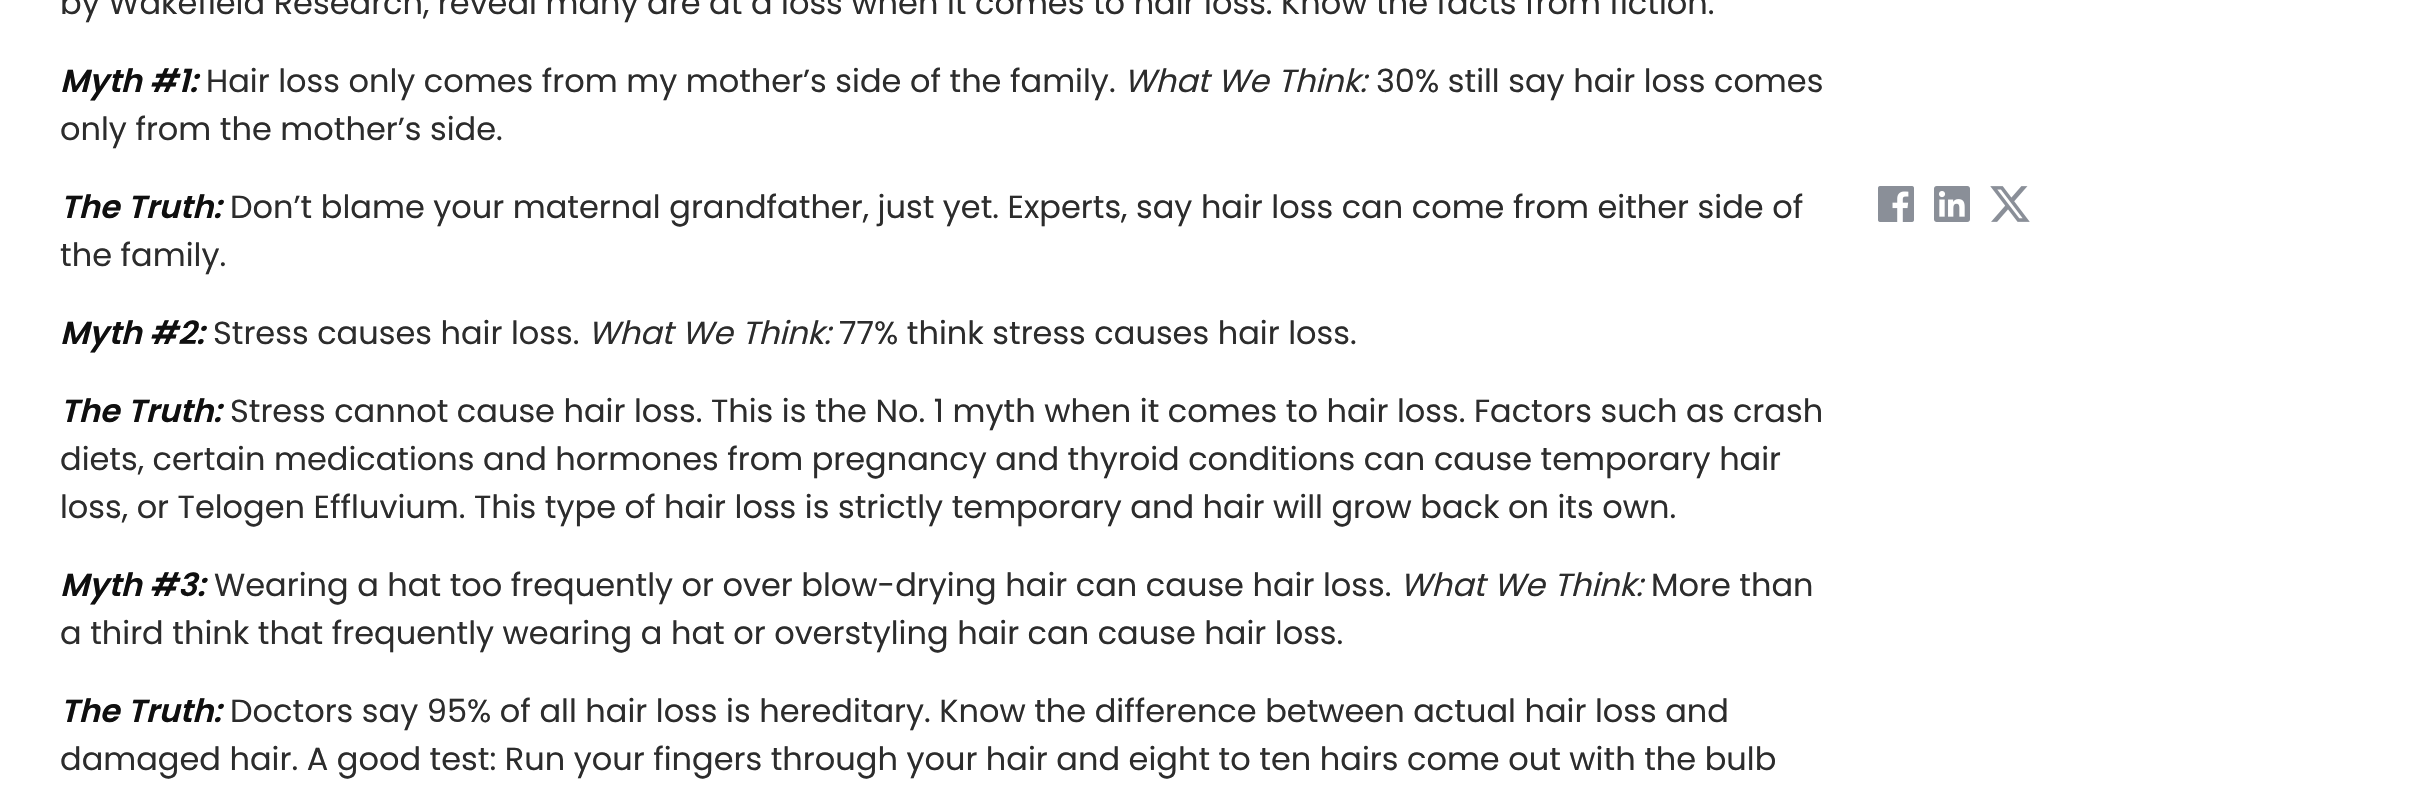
void draw(SkCanvas* canvas) {
    SkPaint paint;
    paint.setAntiAlias(true);
    canvas->clear(0xFFFFFFFF);
    SkFont font1(fontMgr->matchFamilyStyle("Poppins", SkFontStyle::Normal()), 32);
    font1.setSubpixel(true);
    paint.setColor(0xFF2C2C2C);
    canvas->drawString("by Wakefield Research, reveal many are at a loss when it comes to hair loss. Know the facts from fiction.", 60, 14, font1, paint);
    SkFont font2(fontMgr->matchFamilyStyle("Poppins", SkFontStyle(600, SkFontStyle::kNormal_Width, SkFontStyle::kItalic_Slant)), 32);
    font2.setSubpixel(true);
    paint.setColor(0xFF0F0F0F);
    canvas->drawString("Myth #1:", 60, 92, font2, paint);
    paint.setColor(0xFF2C2C2C);
    canvas->drawString("Hair loss only comes from my mother’s side of the family.", 206, 92, font1, paint);
    SkFont font3(fontMgr->matchFamilyStyle("Poppins", SkFontStyle::Italic()), 32);
    font3.setSubpixel(true);
    canvas->drawString("What We Think:", 1124, 92, font3, paint);
    canvas->drawString("30% still say hair loss comes", 1376, 92, font1, paint);
    canvas->drawString("only from the mother’s side.", 60, 140, font1, paint);
    paint.setColor(0xFF0F0F0F);
    canvas->drawString("The Truth:", 60, 218, font2, paint);
    paint.setColor(0xFF2C2C2C);
    canvas->drawString("Don’t blame your maternal grandfather, just yet. Experts, say hair loss can come from either side of", 230, 218, font1, paint);
    canvas->drawString("the family.", 60, 266, font1, paint);
    paint.setColor(0xFF0F0F0F);
    canvas->drawString("Myth #2:", 60, 344, font2, paint);
    paint.setColor(0xFF2C2C2C);
    canvas->drawString("Stress causes hair loss.", 213, 344, font1, paint);
    canvas->drawString("What We Think:", 588, 344, font3, paint);
    canvas->drawString("77% think stress causes hair loss.", 839, 344, font1, paint);
    paint.setColor(0xFF0F0F0F);
    canvas->drawString("The Truth:", 60, 422, font2, paint);
    paint.setColor(0xFF2C2C2C);
    canvas->drawString("Stress cannot cause hair loss. This is the No. 1 myth when it comes to hair loss. Factors such as crash", 230, 422, font1, paint);
    canvas->drawString("diets, certain medications and hormones from pregnancy and thyroid conditions can cause temporary hair", 60, 470, font1, paint);
    canvas->drawString("loss, or Telogen Effluvium. This type of hair loss is strictly temporary and hair will grow back on its own.", 60, 518, font1, paint);
    paint.setColor(0xFF0F0F0F);
    canvas->drawString("Myth #3:", 60, 596, font2, paint);
    paint.setColor(0xFF2C2C2C);
    canvas->drawString("Wearing a hat too frequently or over blow-drying hair can cause hair loss.", 214, 596, font1, paint);
    canvas->drawString("What We Think:", 1400, 596, font3, paint);
    canvas->drawString("More than", 1651, 596, font1, paint);
    canvas->drawString("a third think that frequently wearing a hat or overstyling hair can cause hair loss.", 60, 644, font1, paint);
    paint.setColor(0xFF0F0F0F);
    canvas->drawString("The Truth:", 60, 722, font2, paint);
    paint.setColor(0xFF2C2C2C);
    canvas->drawString("Doctors say 95% of all hair loss is hereditary. Know the difference between actual hair loss and", 230, 722, font1, paint);
    canvas->drawString("damaged hair. A good test: Run your fingers through your hair and eight to ten hairs come out with the bulb", 60, 770, font1, paint);
    canvas->drawImageRect(SkImages::DeferredFromEncodedData(SkData::MakeFromFileName("img1.png")), SkRect::MakeXYWH(1878, 186, 36, 36), SkSamplingOptions());
    canvas->drawImageRect(SkImages::DeferredFromEncodedData(SkData::MakeFromFileName("img2.png")), SkRect::MakeXYWH(1934, 186, 36, 36), SkSamplingOptions());
    canvas->drawImageRect(SkImages::DeferredFromEncodedData(SkData::MakeFromFileName("img3.png")), SkRect::MakeXYWH(1990, 186, 40, 36), SkSamplingOptions());
}
